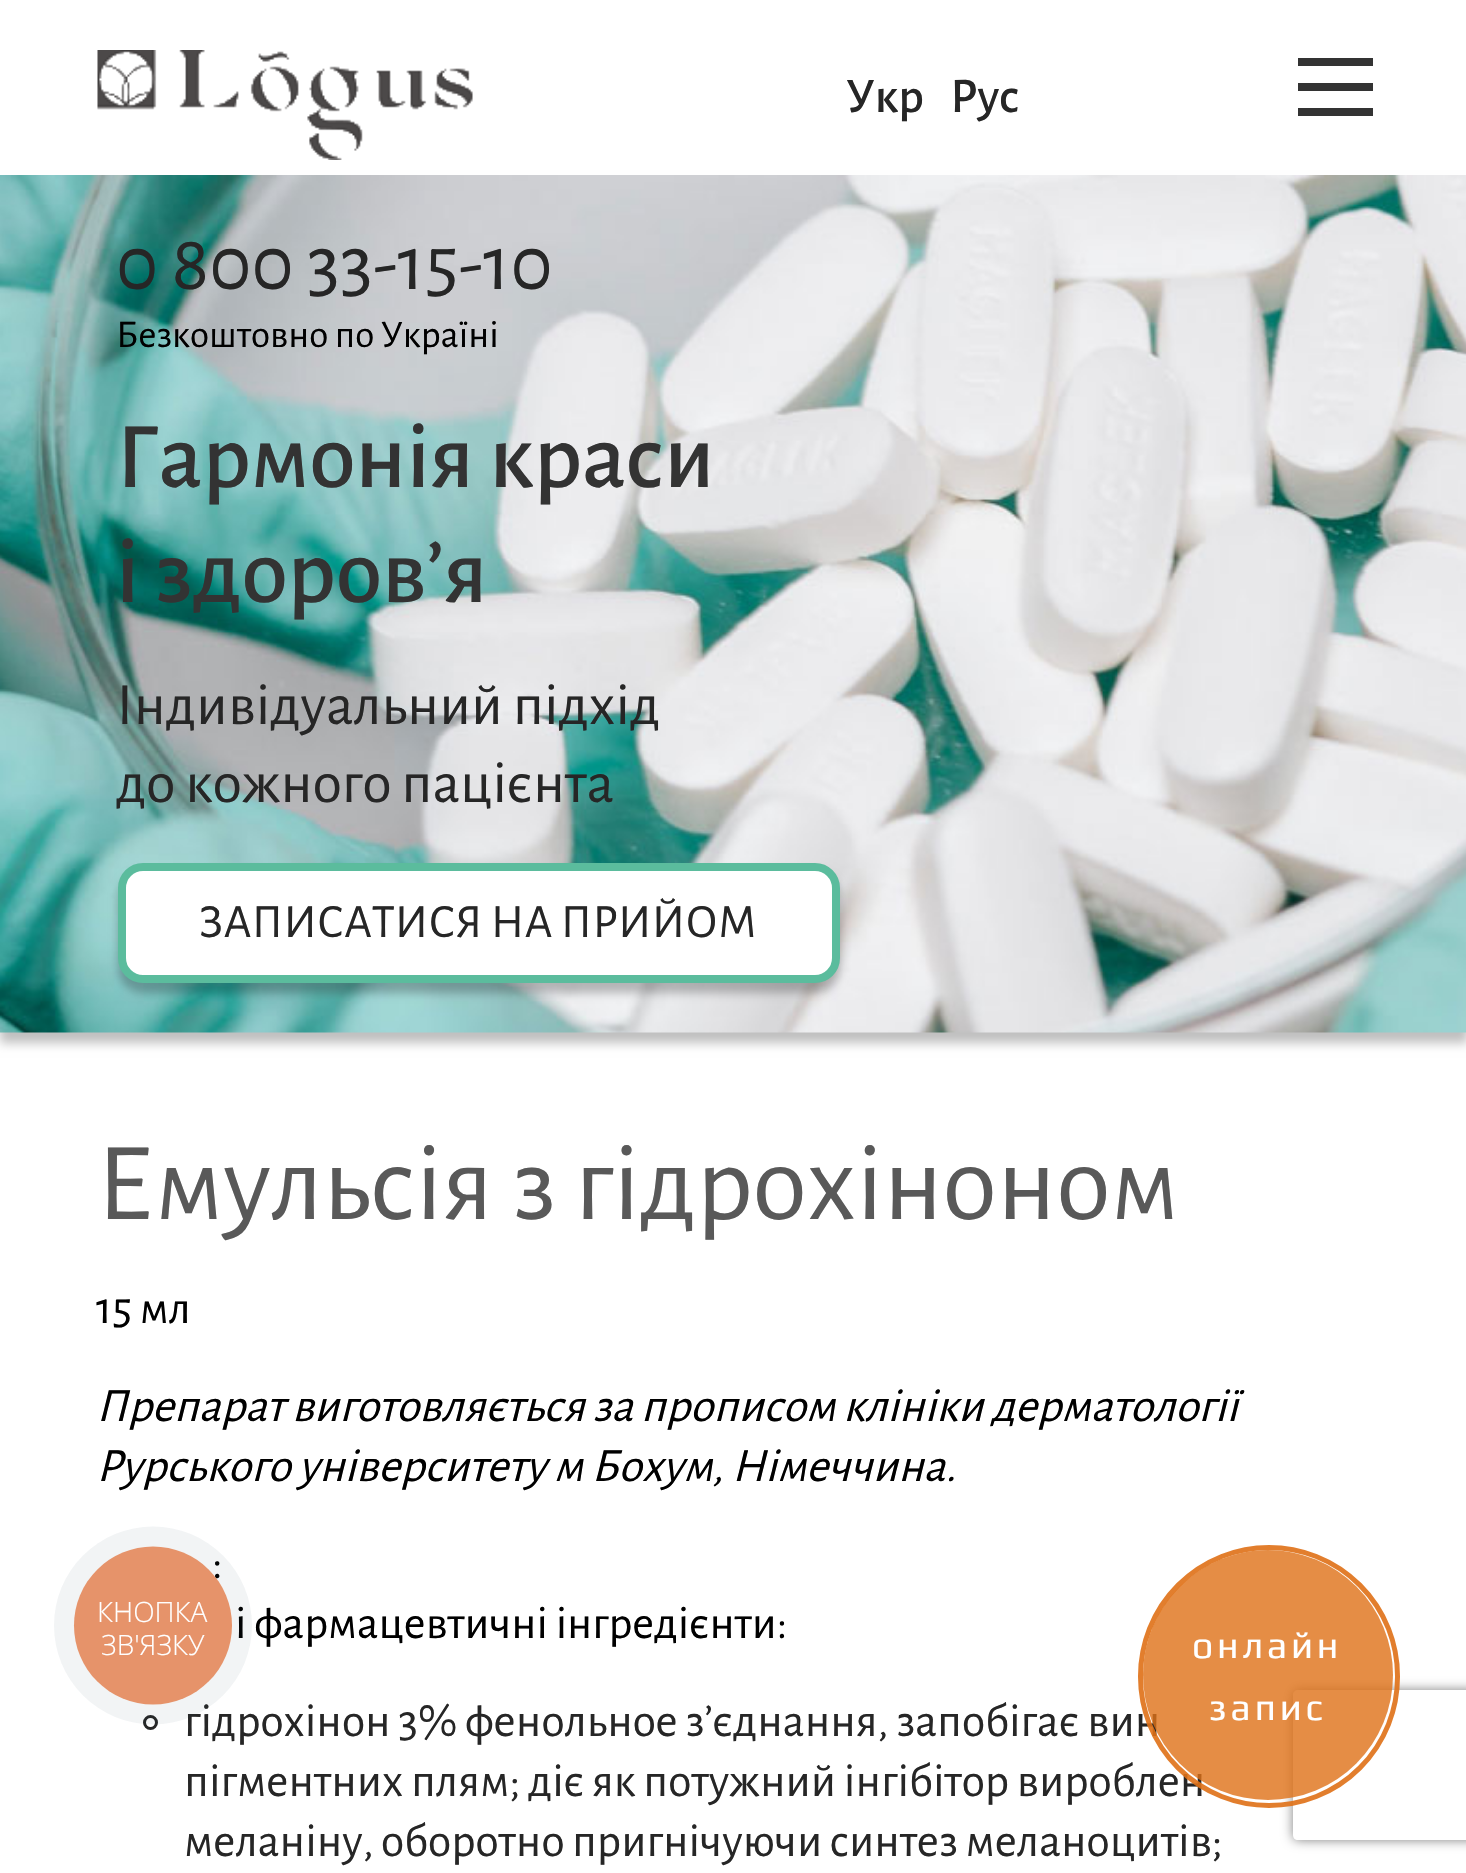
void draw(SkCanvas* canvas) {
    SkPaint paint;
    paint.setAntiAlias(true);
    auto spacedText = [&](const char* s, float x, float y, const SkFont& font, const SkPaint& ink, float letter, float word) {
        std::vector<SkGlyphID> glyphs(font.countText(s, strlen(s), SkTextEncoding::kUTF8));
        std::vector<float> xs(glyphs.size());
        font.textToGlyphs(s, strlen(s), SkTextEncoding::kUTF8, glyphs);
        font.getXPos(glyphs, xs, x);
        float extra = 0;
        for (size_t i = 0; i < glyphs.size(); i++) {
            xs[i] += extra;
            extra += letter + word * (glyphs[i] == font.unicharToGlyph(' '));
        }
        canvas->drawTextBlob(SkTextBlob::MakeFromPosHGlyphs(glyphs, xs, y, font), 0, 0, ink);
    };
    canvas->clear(0xFFFFFFFF);
    canvas->drawImageRect(SkImages::DeferredFromEncodedData(SkData::MakeFromFileName("img1.png")), SkRect::MakeXYWH(97, 50, 376, 110), SkSamplingOptions());
    SkFont font1(fontMgr->matchFamilyStyle("Alegreya Sans", SkFontStyle(500, SkFontStyle::kNormal_Width, SkFontStyle::kUpright_Slant)), 50);
    font1.setSubpixel(true);
    paint.setColor(0xFF262626);
    canvas->drawString("Укр", 846, 112, font1, paint);
    canvas->drawString("Рус", 950, 112, font1, paint);
    paint.setColor(0xFF333333);
    canvas->drawRect(SkRect::MakeXYWH(1298, 83, 75, 8), paint);
    canvas->drawRect(SkRect::MakeXYWH(1298, 58, 75, 8), paint);
    canvas->drawRect(SkRect::MakeXYWH(1298, 108, 75, 8), paint);
    paint.setColor(0x40000000);
    paint.setMaskFilter(SkMaskFilter::MakeBlur(kNormal_SkBlurStyle, 5));
    canvas->drawRect(SkRect::MakeXYWH(0, 185, 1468, 858), paint);
    paint.setMaskFilter(nullptr);
    canvas->drawImageRect(SkImages::DeferredFromEncodedData(SkData::MakeFromFileName("img2.png")), SkRect::MakeXYWH(0, 175, 1466, 858), SkSamplingOptions());
    SkFont font2(fontMgr->matchFamilyStyle("Alegreya Sans", SkFontStyle::Normal()), 80);
    font2.setSubpixel(true);
    paint.setColor(0xFF262626);
    canvas->drawString("0 800 33-15-10", 116, 289, font2, paint);
    SkFont font3(fontMgr->matchFamilyStyle("Alegreya Sans", SkFontStyle::Normal()), 39.25f);
    font3.setSubpixel(true);
    paint.setColor(0xFF000000);
    canvas->drawString("Безкоштовно по Україні", 116, 347, font3, paint);
    SkFont font4(fontMgr->matchFamilyStyle("Alegreya Sans", SkFontStyle(500, SkFontStyle::kNormal_Width, SkFontStyle::kUpright_Slant)), 94.25f);
    font4.setSubpixel(true);
    paint.setColor(0xFF333333);
    canvas->drawString("Гармонія краси", 116, 487, font4, paint);
    canvas->drawString("i здоров’я", 116, 602, font4, paint);
    SkFont font5(fontMgr->matchFamilyStyle("Alegreya Sans", SkFontStyle::Normal()), 60);
    font5.setSubpixel(true);
    paint.setColor(0xFF262626);
    canvas->drawString("Індивідуальний підхід", 116, 724, font5, paint);
    canvas->drawString("до кожного пацієнта", 116, 802, font5, paint);
    paint.setColor(0x40000000);
    paint.setMaskFilter(SkMaskFilter::MakeBlur(kNormal_SkBlurStyle, 5));
    canvas->drawRoundRect(SkRect::MakeXYWH(118, 873, 722, 120), 25, 25, paint);
    paint.setMaskFilter(nullptr);
    paint.setColor(0xFFFFFFFF);
    canvas->drawRoundRect(SkRect::MakeXYWH(122, 867, 714, 112), 21, 21, paint);
    paint.setStyle(SkPaint::kStroke_Style);
    paint.setStrokeWidth(8);
    paint.setColor(0xFF5BBC9D);
    canvas->drawRoundRect(SkRect::MakeXYWH(122, 867, 714, 112), 21, 21, paint);
    SkFont font6(fontMgr->matchFamilyStyle("Alegreya Sans", SkFontStyle::Normal()), 47.8f);
    font6.setSubpixel(true);
    paint.setStyle(SkPaint::kFill_Style);
    paint.setColor(0xFF262626);
    canvas->drawString("ЗАПИСАТИСЯ НА ПРИЙОМ", 199, 937, font6, paint);
    SkFont font7(fontMgr->matchFamilyStyle("Alegreya Sans", SkFontStyle::Normal()), 111.5f);
    font7.setSubpixel(true);
    paint.setColor(0xFF595959);
    canvas->drawString("Емульсія з гідрохіноном", 96, 1219, font7, paint);
    SkFont font8(fontMgr->matchFamilyStyle("Alegreya Sans", SkFontStyle::Normal()), 47.1f);
    font8.setSubpixel(true);
    paint.setColor(0xFF000000);
    canvas->drawString("15 мл", 96, 1323, font8, paint);
    SkFont font9(fontMgr->matchFamilyStyle("Alegreya Sans", SkFontStyle::Italic()), 47.8f);
    font9.setSubpixel(true);
    spacedText("Препарат виготовляється за прописом клініки дерматології", 96, 1421, font9, paint, 0, -0.25f);
    canvas->drawString("Рурського університету м Бохум, Німеччина.", 96, 1481, font9, paint);
    canvas->drawString(":", 212, 1578, font8, paint);
    canvas->drawString("і фармацевтичні інгредієнти:", 235, 1638, font8, paint);
    paint.setStyle(SkPaint::kStroke_Style);
    paint.setStrokeWidth(3);
    paint.setColor(0xFF262626);
    canvas->drawCircle(150.5f, 1722.5f, 6, paint);
    paint.setStyle(SkPaint::kFill_Style);
    spacedText("гідрохінон 3% фенольное з’єднання, запобігає вин", 184, 1736, font6, paint, 0, -0.25f);
    spacedText("пігментних плям; діє як потужний інгібітор вироблен", 184, 1796, font6, paint, 0, -0.25f);
    spacedText("меланіну, оборотно пригнічуючи синтез меланоцитів;", 184, 1856, font6, paint, 0, -0.5f);
    paint.setColor(0x0F2A405D);
    canvas->drawCircle(153, 1625.5f, 99, paint);
    paint.setColor(0xFFE6936A);
    canvas->drawCircle(153, 1625.5f, 79, paint);
    SkFont font10(fontMgr->matchFamilyStyle("Open Sans", SkFontStyle(300, SkFontStyle::kNormal_Width, SkFontStyle::kUpright_Slant)), 28);
    font10.setSubpixel(true);
    paint.setColor(0xFFFFFFFF);
    canvas->drawString("КНОПКА", 97, 1622, font10, paint);
    canvas->drawString("ЗВ'ЯЗКУ", 101, 1655, font10, paint);
    canvas->save();
    canvas->clipPath(SkPathBuilder(SkPathFillType::kEvenOdd).moveTo(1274, 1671).lineTo(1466, 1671).lineTo(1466, 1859).lineTo(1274, 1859).close().moveTo(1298, 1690).lineTo(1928, 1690).cubicTo(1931, 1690, 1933, 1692, 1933, 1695).lineTo(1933, 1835).cubicTo(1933, 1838, 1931, 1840, 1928, 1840).lineTo(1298, 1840).cubicTo(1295, 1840, 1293, 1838, 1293, 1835).lineTo(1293, 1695).cubicTo(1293, 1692, 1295, 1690, 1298, 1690).close().detach(), true);
    paint.setColor(0xFF808080);
    paint.setMaskFilter(SkMaskFilter::MakeBlur(kNormal_SkBlurStyle, 6));
    canvas->drawRoundRect(SkRect::MakeXYWH(1293, 1690, 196, 150), 5, 5, paint);
    paint.setMaskFilter(nullptr);
    canvas->restore();
    paint.setColor(0xCCDF7016);
    canvas->drawCircle(1268, 1675, 125, paint);
    paint.setStyle(SkPaint::kStroke_Style);
    paint.setStrokeWidth(5);
    paint.setColor(0xE6DF7016);
    canvas->drawRoundRect(SkRect::MakeXYWH(1140.5f, 1547.5f, 257, 258), 128.5f, 128.5f, paint);
    SkFont font11(fontMgr->matchFamilyStyle("Play", SkFontStyle::Normal()), 37.5f);
    font11.setSubpixel(true);
    paint.setStyle(SkPaint::kFill_Style);
    paint.setColor(0xFFFFFFFF);
    spacedText("онлайн", 1192, 1658, font11, paint, 3.75f, 0);
    spacedText("запис", 1209, 1720, font11, paint, 3.75f, 0);
}
